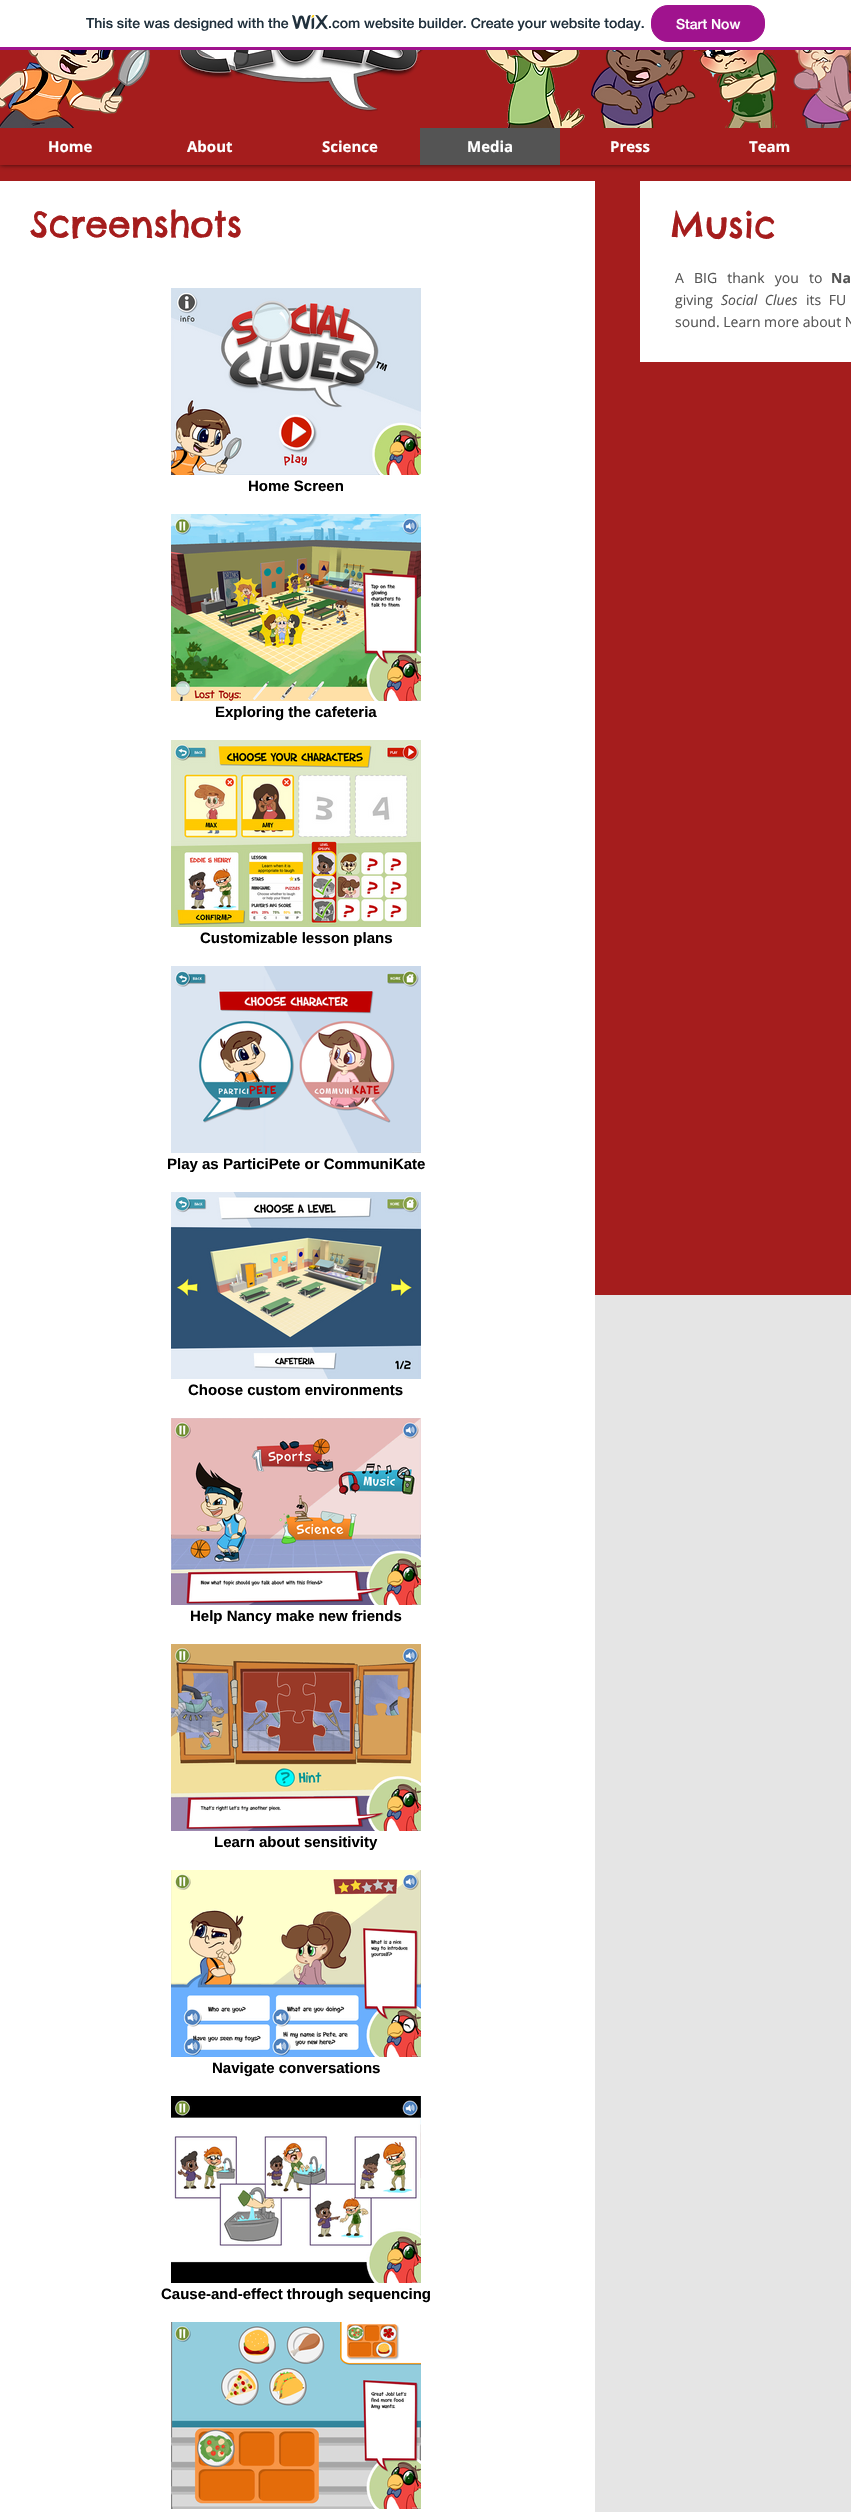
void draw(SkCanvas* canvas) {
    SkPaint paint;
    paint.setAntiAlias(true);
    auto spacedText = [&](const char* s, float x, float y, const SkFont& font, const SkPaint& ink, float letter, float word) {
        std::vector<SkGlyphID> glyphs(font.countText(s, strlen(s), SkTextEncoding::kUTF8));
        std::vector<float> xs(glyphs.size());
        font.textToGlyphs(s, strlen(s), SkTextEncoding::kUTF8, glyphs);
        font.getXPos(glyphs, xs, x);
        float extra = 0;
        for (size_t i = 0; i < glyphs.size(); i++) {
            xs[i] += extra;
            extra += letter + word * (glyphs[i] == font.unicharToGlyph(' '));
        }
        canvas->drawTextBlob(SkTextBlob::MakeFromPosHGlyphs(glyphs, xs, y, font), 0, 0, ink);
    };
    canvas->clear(0xFFE5E5E5);
    paint.setColor(0xFFA51D1D);
    canvas->drawRect(SkRect::MakeXYWH(0, 165, 851, 1130), paint);
    paint.setColor(0xB3000000);
    paint.setMaskFilter(SkMaskFilter::MakeBlur(kNormal_SkBlurStyle, 2.5f));
    canvas->drawRect(SkRect::MakeXYWH(0, -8, 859, 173), paint);
    paint.setMaskFilter(nullptr);
    paint.setColor(0xFFFFFFFF);
    canvas->drawRect(SkRect::MakeXYWH(0, 0, 851, 47), paint);
    paint.setColor(0xFFA0138E);
    canvas->drawRect(SkRect::MakeXYWH(0, 47, 851, 3), paint);
    SkFont font1(fontMgr->matchFamilyStyle("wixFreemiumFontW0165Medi", SkFontStyle(500, SkFontStyle::kNormal_Width, SkFontStyle::kUpright_Slant)), 14);
    font1.setSubpixel(true);
    paint.setColor(0xFF20303C);
    canvas->drawString("This site was designed with the", 86, 28, font1, paint);
    canvas->drawImageRect(SkImages::DeferredFromEncodedData(SkData::MakeFromFileName("img1.png")), SkRect::MakeXYWH(292, 15, 36, 15), SkSamplingOptions());
    canvas->drawString(".com website builder. Create your website today.", 328, 28, font1, paint);
    paint.setColor(0xFFA0138E);
    canvas->drawRoundRect(SkRect::MakeXYWH(651.5f, 5.5f, 113, 36), 16.5f, 16.5f, paint);
    paint.setStyle(SkPaint::kStroke_Style);
    paint.setStrokeWidth(1);
    canvas->drawRoundRect(SkRect::MakeXYWH(651.5f, 5.5f, 113, 36), 16.5f, 16.5f, paint);
    paint.setStyle(SkPaint::kFill_Style);
    paint.setColor(0xFFFFFFFF);
    canvas->drawString("Start Now", 676, 29, font1, paint);
    paint.setColor(0xFFA51D1D);
    canvas->drawRect(SkRect::MakeXYWH(0, 50, 851, 115), paint);
    canvas->drawImageRect(SkImages::DeferredFromEncodedData(SkData::MakeFromFileName("img2.png")), SkRect::MakeXYWH(0, 50, 150, 78), SkSamplingOptions());
    canvas->drawImageRect(SkImages::DeferredFromEncodedData(SkData::MakeFromFileName("img3.png")), SkRect::MakeXYWH(178, 50, 245, 62), SkSamplingOptions());
    canvas->drawImageRect(SkImages::DeferredFromEncodedData(SkData::MakeFromFileName("img4.png")), SkRect::MakeXYWH(485, 50, 100, 78), SkSamplingOptions());
    canvas->drawImageRect(SkImages::DeferredFromEncodedData(SkData::MakeFromFileName("img6.png")), SkRect::MakeXYWH(692, 50, 86, 78), SkSamplingOptions());
    canvas->drawImageRect(SkImages::DeferredFromEncodedData(SkData::MakeFromFileName("img5.png")), SkRect::MakeXYWH(591, 50, 105, 78), SkSamplingOptions());
    canvas->drawImageRect(SkImages::DeferredFromEncodedData(SkData::MakeFromFileName("img7.png")), SkRect::MakeXYWH(793, 50, 58, 78), SkSamplingOptions());
    SkFont font2(fontMgr->matchFamilyStyle("Open Sans", SkFontStyle::Bold()), 15);
    font2.setSubpixel(true);
    paint.setColor(0xFFFFFFFF);
    canvas->drawString("Home", 48, 152, font2, paint);
    canvas->drawString("About", 187, 152, font2, paint);
    canvas->drawString("Science", 322, 152, font2, paint);
    paint.setColor(0xFF545454);
    canvas->drawRect(SkRect::MakeXYWH(420, 128, 140, 37), paint);
    paint.setColor(0xFFFFFFFF);
    canvas->drawString("Media", 467, 152, font2, paint);
    canvas->drawString("Press", 610, 152, font2, paint);
    canvas->drawString("Team", 749, 152, font2, paint);
    canvas->drawRect(SkRect::MakeXYWH(0, 181, 595, 2331), paint);
    SkFont font3(fontMgr->matchFamilyStyle("Chelsea Market", SkFontStyle::Normal()), 36);
    font3.setSubpixel(true);
    paint.setColor(0xFFA51D1D);
    canvas->drawString("Screenshots", 30, 237, font3, paint);
    paint.setColor(0xFFFFFFFF);
    canvas->drawRect(SkRect::MakeXYWH(640, 181, 211, 181), paint);
    paint.setColor(0xFFA51D1D);
    canvas->drawString("Music", 670, 238, font3, paint);
    SkFont font4(fontMgr->matchFamilyStyle("Open Sans", SkFontStyle::Normal()), 14);
    font4.setSubpixel(true);
    paint.setColor(0xFF545454);
    spacedText("A BIG thank you to", 675, 283, font4, paint, 0, 6.5f);
    SkFont font5(fontMgr->matchFamilyStyle("Open Sans", SkFontStyle::Bold()), 14);
    font5.setSubpixel(true);
    spacedText("Na", 831, 283, font5, paint, 0, 6.5f);
    canvas->drawString("giving", 675, 305, font4, paint);
    SkFont font6(fontMgr->matchFamilyStyle("Open Sans", SkFontStyle::Italic()), 14);
    font6.setSubpixel(true);
    spacedText("Social Clues", 721, 305, font6, paint, 0, 4);
    spacedText("its FU", 806, 305, font4, paint, 0, 4);
    canvas->drawString("sound. Learn more about N", 675, 327, font4, paint);
    canvas->drawImageRect(SkImages::DeferredFromEncodedData(SkData::MakeFromFileName("img8.png")), SkRect::MakeXYWH(171, 288, 250, 187), SkSamplingOptions());
    SkFont font7(fontMgr->matchFamilyStyle("Liberation Sans", SkFontStyle::Bold()), 15);
    font7.setSubpixel(true);
    paint.setColor(0xFF000000);
    canvas->drawString("Home Screen", 248, 491, font7, paint);
    canvas->drawImageRect(SkImages::DeferredFromEncodedData(SkData::MakeFromFileName("img9.png")), SkRect::MakeXYWH(171, 514, 250, 187), SkSamplingOptions());
    canvas->drawString("Exploring the cafeteria", 215, 717, font7, paint);
    canvas->drawImageRect(SkImages::DeferredFromEncodedData(SkData::MakeFromFileName("img10.png")), SkRect::MakeXYWH(171, 740, 250, 187), SkSamplingOptions());
    canvas->drawString("Customizable lesson plans", 200, 943, font7, paint);
    canvas->drawImageRect(SkImages::DeferredFromEncodedData(SkData::MakeFromFileName("img11.png")), SkRect::MakeXYWH(171, 966, 250, 187), SkSamplingOptions());
    canvas->drawString("Play as ParticiPete or CommuniKate", 167, 1169, font7, paint);
    canvas->drawImageRect(SkImages::DeferredFromEncodedData(SkData::MakeFromFileName("img12.png")), SkRect::MakeXYWH(171, 1192, 250, 187), SkSamplingOptions());
    canvas->drawString("Choose custom environments", 188, 1395, font7, paint);
    canvas->drawImageRect(SkImages::DeferredFromEncodedData(SkData::MakeFromFileName("img13.png")), SkRect::MakeXYWH(171, 1418, 250, 187), SkSamplingOptions());
    canvas->drawString("Help Nancy make new friends", 190, 1621, font7, paint);
    canvas->drawImageRect(SkImages::DeferredFromEncodedData(SkData::MakeFromFileName("img14.png")), SkRect::MakeXYWH(171, 1644, 250, 187), SkSamplingOptions());
    canvas->drawString("Learn about sensitivity", 214, 1847, font7, paint);
    canvas->drawImageRect(SkImages::DeferredFromEncodedData(SkData::MakeFromFileName("img15.png")), SkRect::MakeXYWH(171, 1870, 250, 187), SkSamplingOptions());
    canvas->drawString("Navigate conversations", 212, 2073, font7, paint);
    canvas->drawImageRect(SkImages::DeferredFromEncodedData(SkData::MakeFromFileName("img16.png")), SkRect::MakeXYWH(171, 2096, 250, 187), SkSamplingOptions());
    canvas->drawString("Cause-and-effect through sequencing", 161, 2299, font7, paint);
    canvas->drawImageRect(SkImages::DeferredFromEncodedData(SkData::MakeFromFileName("img17.png")), SkRect::MakeXYWH(171, 2322, 250, 187), SkSamplingOptions());
}
